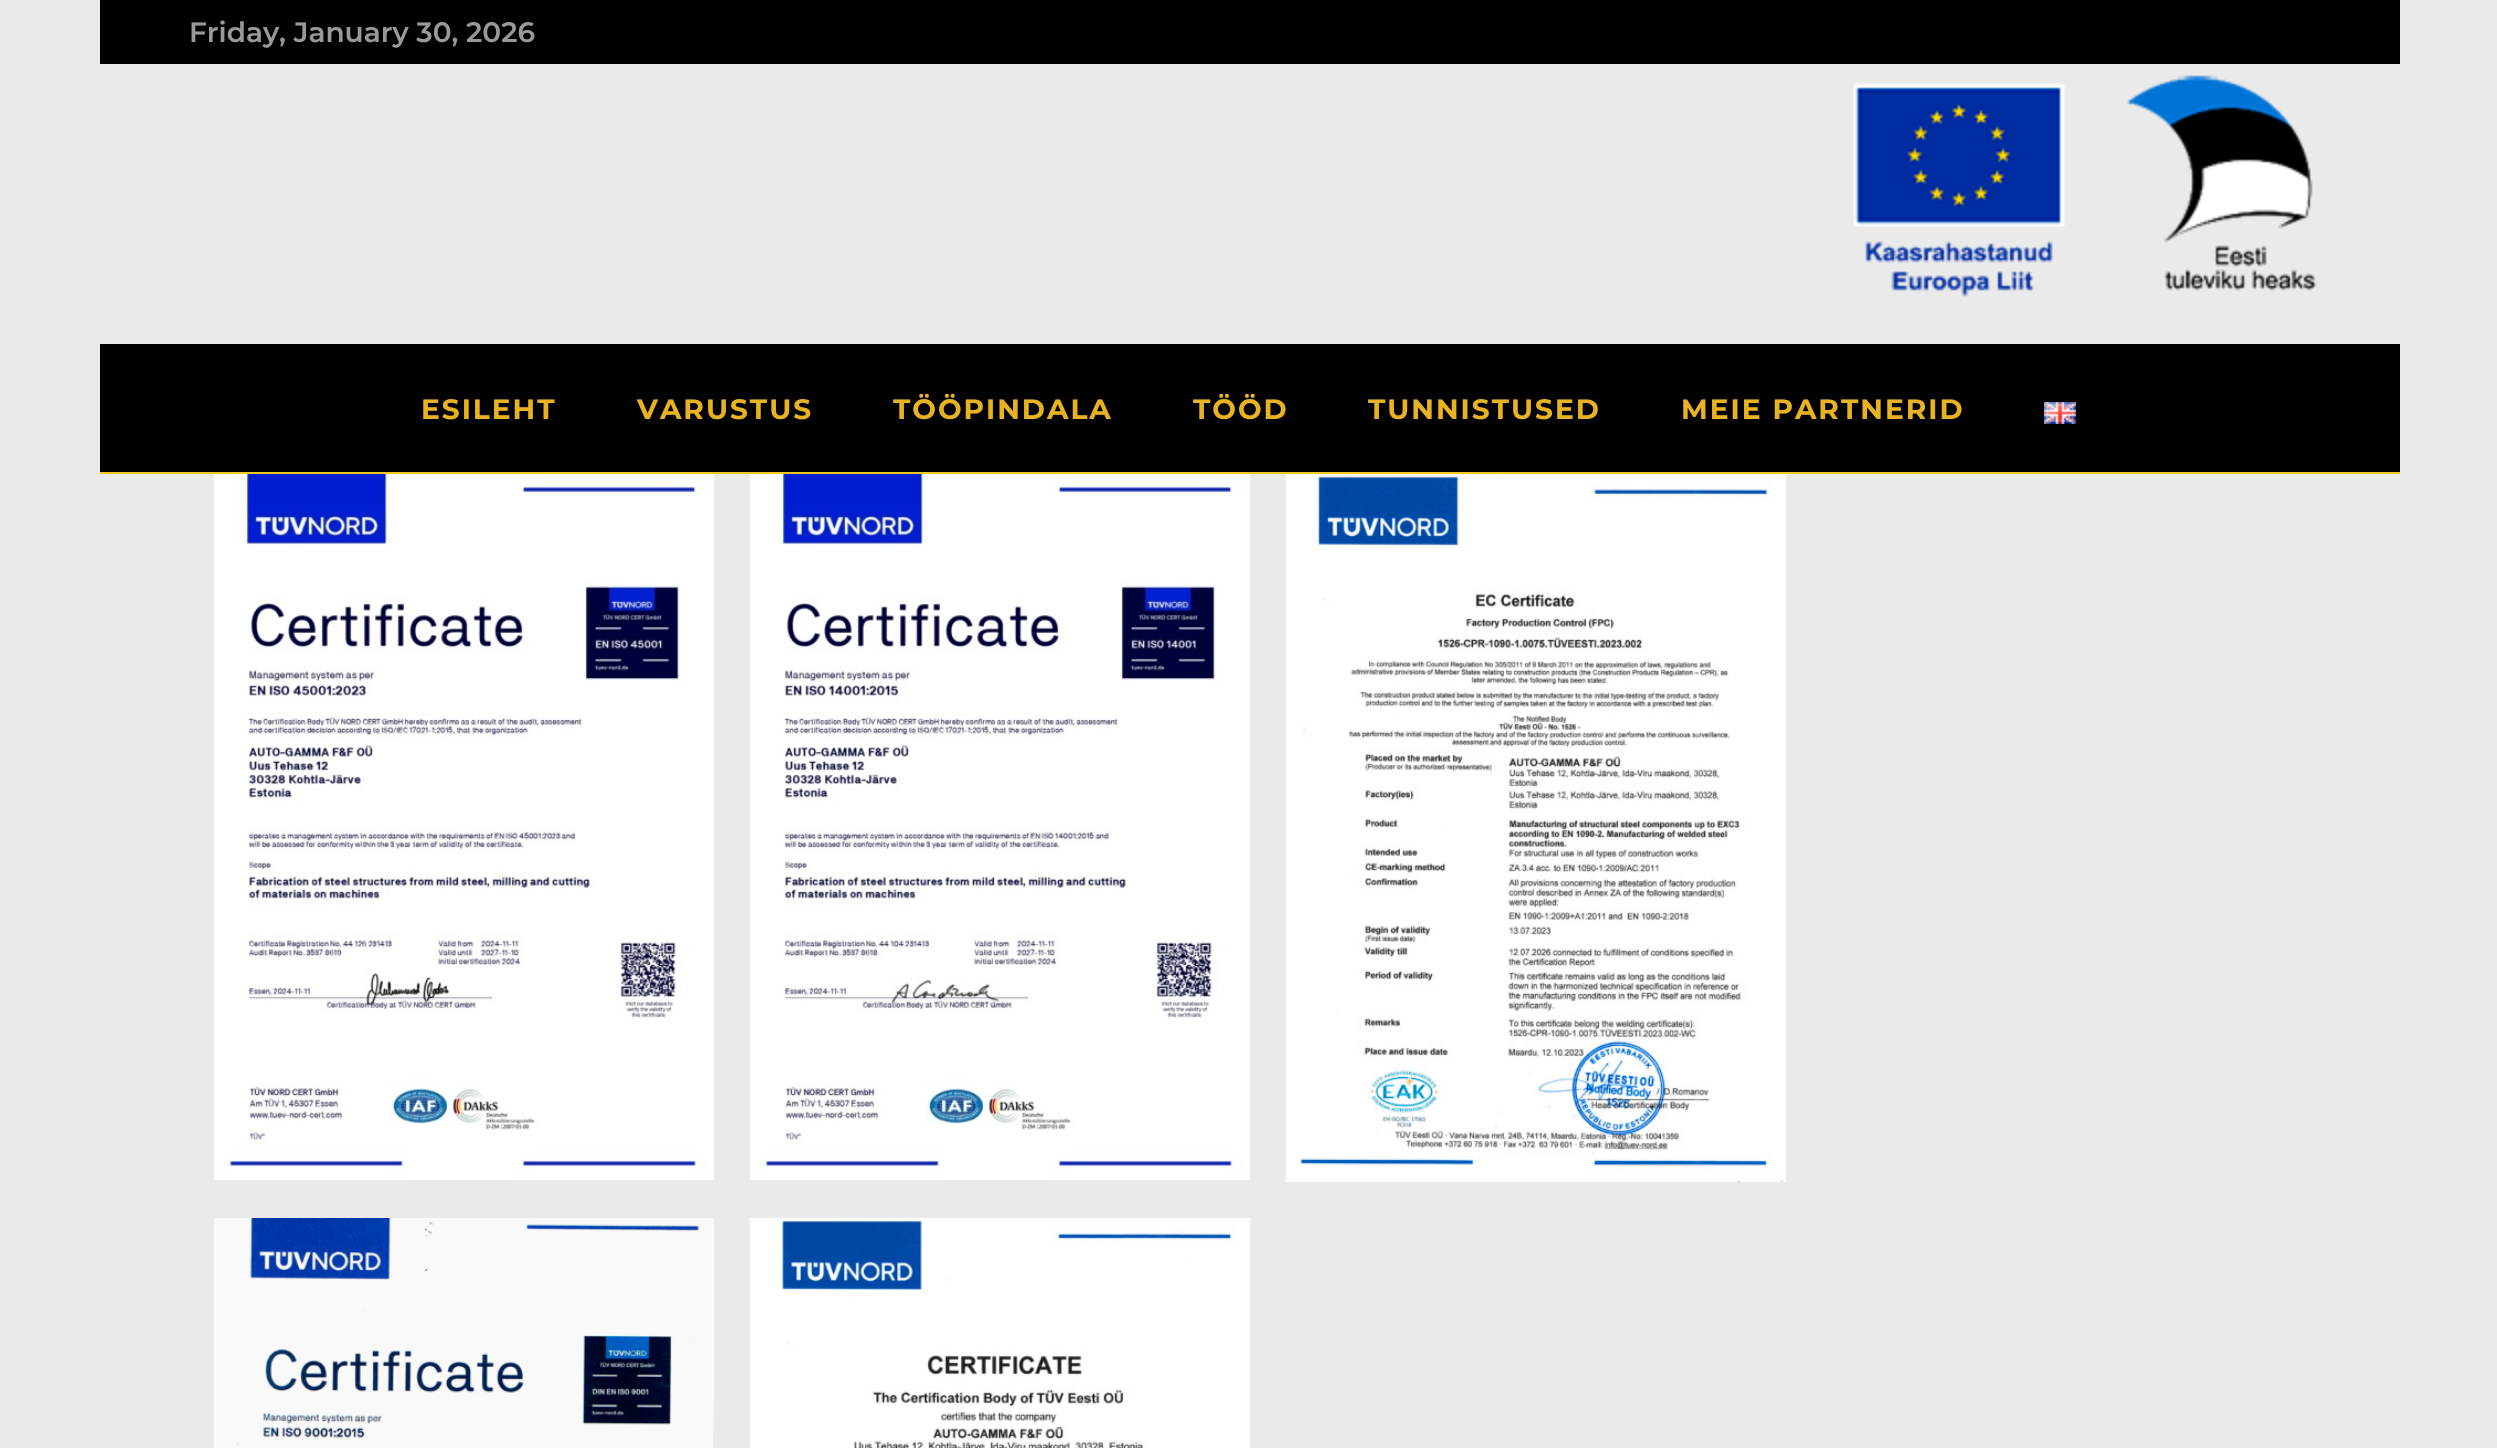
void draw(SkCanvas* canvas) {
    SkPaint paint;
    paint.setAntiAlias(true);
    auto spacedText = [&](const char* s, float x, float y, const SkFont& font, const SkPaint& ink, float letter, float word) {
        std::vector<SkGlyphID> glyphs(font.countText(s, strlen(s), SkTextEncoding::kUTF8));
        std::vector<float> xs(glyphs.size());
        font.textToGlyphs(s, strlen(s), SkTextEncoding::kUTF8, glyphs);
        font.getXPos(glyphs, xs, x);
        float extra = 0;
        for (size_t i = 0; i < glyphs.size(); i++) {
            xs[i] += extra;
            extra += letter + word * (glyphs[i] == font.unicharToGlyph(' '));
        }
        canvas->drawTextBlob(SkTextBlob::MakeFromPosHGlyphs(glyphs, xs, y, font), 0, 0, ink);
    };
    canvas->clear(0xFFEAEAEA);
    paint.setColor(0xFF000000);
    canvas->drawRect(SkRect::MakeXYWH(100, 0, 2300, 64), paint);
    SkFont font1(fontMgr->matchFamilyStyle("Montserrat", SkFontStyle(600, SkFontStyle::kNormal_Width, SkFontStyle::kUpright_Slant)), 28);
    font1.setSubpixel(true);
    paint.setColor(0xFF999999);
    canvas->drawString("Friday, January 30, 2026", 189, 42, font1, paint);
    canvas->drawImageRect(SkImages::DeferredFromEncodedData(SkData::MakeFromFileName("img1.png")), SkRect::MakeXYWH(1853, 75, 464, 222), SkSamplingOptions());
    paint.setColor(0xFFF2C821);
    canvas->drawRect(SkRect::MakeXYWH(100, 472, 2300, 2), paint);
    paint.setColor(0xFF000000);
    canvas->drawRect(SkRect::MakeXYWH(100, 344, 2300, 128), paint);
    SkFont font2(fontMgr->matchFamilyStyle("Montserrat", SkFontStyle::Bold()), 28);
    font2.setSubpixel(true);
    paint.setColor(0xFFE8B220);
    spacedText("ESILEHT", 421, 419, font2, paint, 2, 0);
    spacedText("VARUSTUS", 637, 419, font2, paint, 2, 0);
    spacedText("TÖÖPINDALA", 893, 419, font2, paint, 2, 0);
    spacedText("TÖÖD", 1193, 419, font2, paint, 2, 0);
    spacedText("TUNNISTUSED", 1368, 419, font2, paint, 2, 0);
    spacedText("MEIE PARTNERID", 1681, 419, font2, paint, 2, 0);
    canvas->drawImageRect(SkImages::DeferredFromEncodedData(SkData::MakeFromFileName("img2.png")), SkRect::MakeXYWH(2044, 402, 32, 22), SkSamplingOptions());
    canvas->drawImageRect(SkImages::DeferredFromEncodedData(SkData::MakeFromFileName("img3.png")), SkRect::MakeXYWH(214, 474, 500, 706), SkSamplingOptions());
    canvas->drawImageRect(SkImages::DeferredFromEncodedData(SkData::MakeFromFileName("img4.png")), SkRect::MakeXYWH(750, 474, 500, 706), SkSamplingOptions());
    canvas->drawImageRect(SkImages::DeferredFromEncodedData(SkData::MakeFromFileName("img5.png")), SkRect::MakeXYWH(1286, 474, 500, 708), SkSamplingOptions());
    canvas->drawImageRect(SkImages::DeferredFromEncodedData(SkData::MakeFromFileName("img6.png")), SkRect::MakeXYWH(214, 1218, 500, 230), SkSamplingOptions());
    canvas->drawImageRect(SkImages::DeferredFromEncodedData(SkData::MakeFromFileName("img7.png")), SkRect::MakeXYWH(750, 1218, 500, 230), SkSamplingOptions());
}
